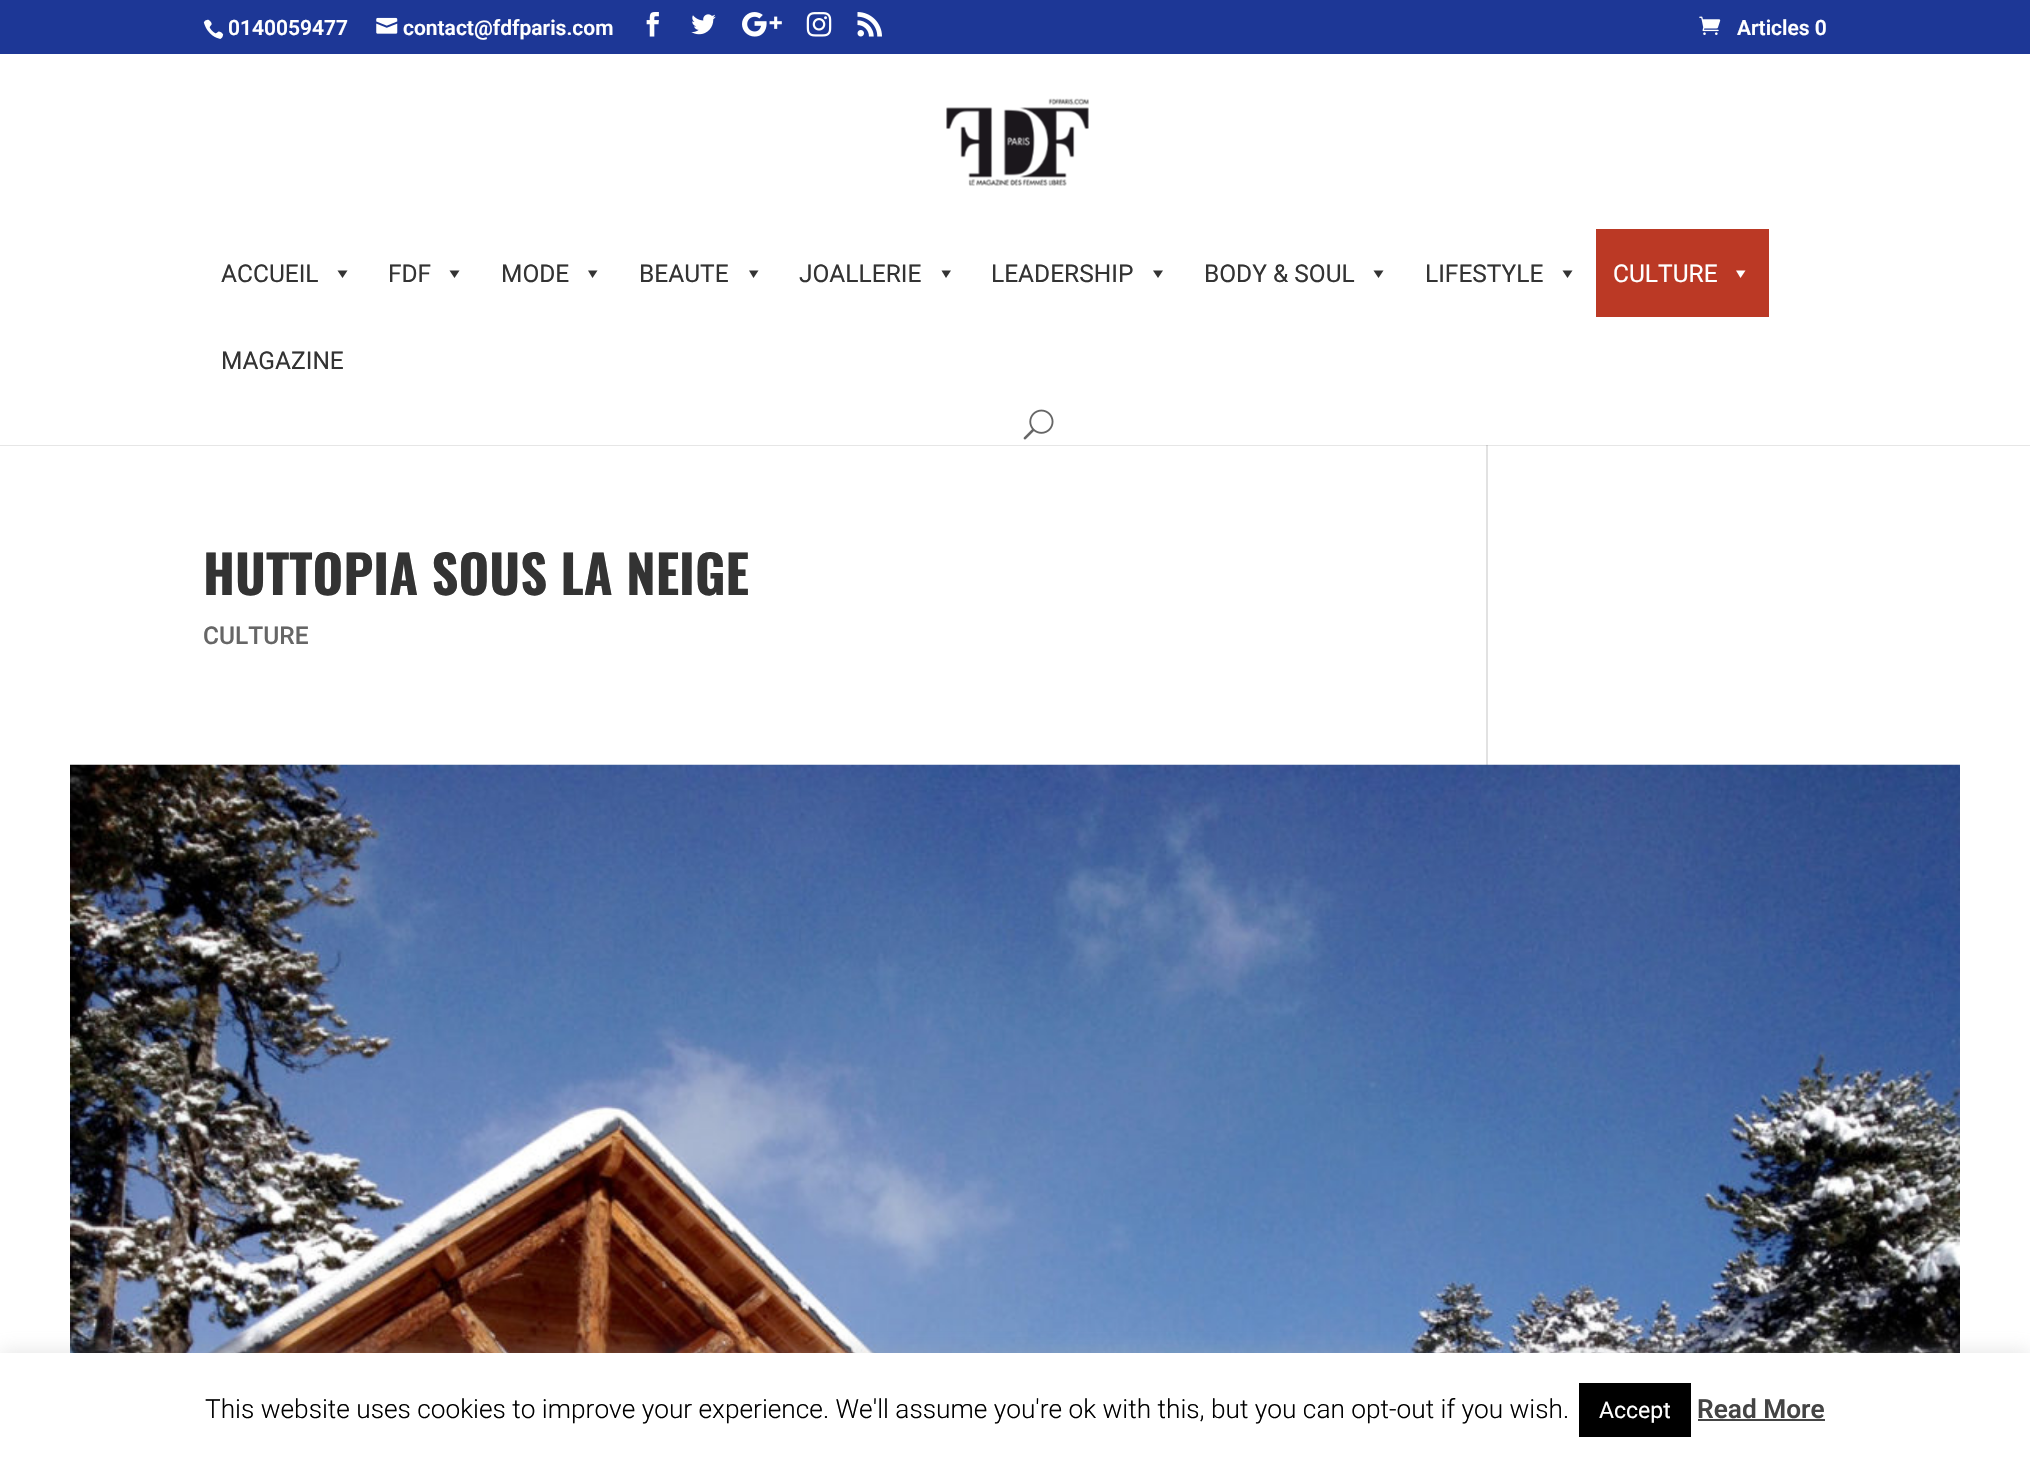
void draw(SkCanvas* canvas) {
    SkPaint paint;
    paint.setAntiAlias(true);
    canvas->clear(0xFFFFFFFF);
    paint.setColor(0xFFE6E6E6);
    canvas->drawRect(SkRect::MakeXYWH(0, 445, 2030, 1), paint);
    paint.setColor(0xFF1D3796);
    canvas->drawRect(SkRect::MakeXYWH(0, 0, 2030, 54), paint);
    canvas->drawImageRect(SkImages::DeferredFromEncodedData(SkData::MakeFromFileName("img1.png")), SkRect::MakeXYWH(203, 19, 21, 20), SkSamplingOptions());
    SkFont font1(fontMgr->matchFamilyStyle("Roboto", SkFontStyle(600, SkFontStyle::kNormal_Width, SkFontStyle::kUpright_Slant)), 21);
    font1.setSubpixel(true);
    paint.setColor(0xFFFFFFFF);
    canvas->drawString("0140059477", 228, 35, font1, paint);
    canvas->drawImageRect(SkImages::DeferredFromEncodedData(SkData::MakeFromFileName("img2.png")), SkRect::MakeXYWH(376, 17, 22, 17), SkSamplingOptions());
    canvas->drawString("contact@fdfparis.com", 403, 35, font1, paint);
    canvas->drawImageRect(SkImages::DeferredFromEncodedData(SkData::MakeFromFileName("img3.png")), SkRect::MakeXYWH(646, 12, 13, 25), SkSamplingOptions());
    canvas->drawImageRect(SkImages::DeferredFromEncodedData(SkData::MakeFromFileName("img4.png")), SkRect::MakeXYWH(691, 14, 25, 21), SkSamplingOptions());
    canvas->drawImageRect(SkImages::DeferredFromEncodedData(SkData::MakeFromFileName("img5.png")), SkRect::MakeXYWH(742, 12, 40, 25), SkSamplingOptions());
    canvas->drawImageRect(SkImages::DeferredFromEncodedData(SkData::MakeFromFileName("img6.png")), SkRect::MakeXYWH(806, 12, 26, 25), SkSamplingOptions());
    canvas->drawImageRect(SkImages::DeferredFromEncodedData(SkData::MakeFromFileName("img7.png")), SkRect::MakeXYWH(857, 12, 25, 25), SkSamplingOptions());
    canvas->drawImageRect(SkImages::DeferredFromEncodedData(SkData::MakeFromFileName("img8.png")), SkRect::MakeXYWH(1699, 16, 22, 19), SkSamplingOptions());
    canvas->drawString("Articles 0", 1737, 35, font1, paint);
    canvas->drawImageRect(SkImages::DeferredFromEncodedData(SkData::MakeFromFileName("img9.png")), SkRect::MakeXYWH(946, 98, 143, 88), SkSamplingOptions());
    SkFont font2(fontMgr->matchFamilyStyle("Roboto", SkFontStyle::Normal()), 24.5f);
    font2.setSubpixel(true);
    paint.setColor(0xFF333333);
    canvas->drawString("ACCUEIL", 221, 282, font2, paint);
    canvas->drawPath(SkPathBuilder().moveTo(347.5f, 270.5f).lineTo(342.5f, 278).lineTo(337.5f, 270.5f).close().detach(), paint);
    canvas->drawString("FDF", 388, 282, font2, paint);
    canvas->drawPath(SkPathBuilder().moveTo(459.5f, 270.5f).lineTo(454.5f, 278).lineTo(449.5f, 270.5f).close().detach(), paint);
    canvas->drawString("MODE", 501, 282, font2, paint);
    canvas->drawPath(SkPathBuilder().moveTo(597.5f, 270.5f).lineTo(592.5f, 278).lineTo(588, 270.5f).close().detach(), paint);
    canvas->drawString("BEAUTE", 639, 282, font2, paint);
    canvas->drawPath(SkPathBuilder().moveTo(758.5f, 270.5f).lineTo(753.5f, 278).lineTo(749, 270.5f).close().detach(), paint);
    canvas->drawString("JOALLERIE", 799, 282, font2, paint);
    canvas->drawPath(SkPathBuilder().moveTo(951, 270.5f).lineTo(946, 278).lineTo(941.5f, 270.5f).close().detach(), paint);
    canvas->drawString("LEADERSHIP", 991, 282, font2, paint);
    canvas->drawPath(SkPathBuilder().moveTo(1163, 270.5f).lineTo(1158, 278).lineTo(1153, 270.5f).close().detach(), paint);
    canvas->drawString("BODY & SOUL", 1204, 282, font2, paint);
    canvas->drawPath(SkPathBuilder().moveTo(1383.5f, 270.5f).lineTo(1378.5f, 278).lineTo(1373.5f, 270.5f).close().detach(), paint);
    canvas->drawString("LIFESTYLE", 1425, 282, font2, paint);
    canvas->drawPath(SkPathBuilder().moveTo(1572.5f, 270.5f).lineTo(1567.5f, 278).lineTo(1562.5f, 270.5f).close().detach(), paint);
    paint.setColor(0xFFBB3925);
    canvas->drawRect(SkRect::MakeXYWH(1596, 229, 173, 88), paint);
    paint.setColor(0xFFFFFFFF);
    canvas->drawString("CULTURE", 1613, 282, font2, paint);
    canvas->drawPath(SkPathBuilder().moveTo(1745.5f, 270.5f).lineTo(1740.5f, 278).lineTo(1736, 270.5f).close().detach(), paint);
    paint.setColor(0xFF333333);
    canvas->drawString("MAGAZINE", 221, 369, font2, paint);
    canvas->drawImageRect(SkImages::DeferredFromEncodedData(SkData::MakeFromFileName("img10.png")), SkRect::MakeXYWH(1023, 409, 31, 31), SkSamplingOptions());
    SkFont font3(fontMgr->matchFamilyStyle("Oswald", SkFontStyle::Bold()), 52.5f);
    font3.setSubpixel(true);
    canvas->drawString("HUTTOPIA SOUS LA NEIGE", 203, 595, font3, paint);
    SkFont font4(fontMgr->matchFamilyStyle("Roboto", SkFontStyle(500, SkFontStyle::kNormal_Width, SkFontStyle::kUpright_Slant)), 24.5f);
    font4.setSubpixel(true);
    paint.setColor(0xFF666666);
    canvas->drawString("CULTURE", 203, 644, font4, paint);
    paint.setColor(0xFFE2E2E2);
    canvas->drawRect(SkRect::MakeXYWH(1486, 445, 2, 320), paint);
    canvas->drawImageRect(SkImages::DeferredFromEncodedData(SkData::MakeFromFileName("img11.png")), SkRect::MakeXYWH(70, 764, 1890, 589), SkSamplingOptions());
    paint.setColor(0xFFCBCBCB);
    canvas->drawRect(SkRect::MakeXYWH(1486, 445, 2, 1), paint);
    paint.setColor(0x4DACABAB);
    paint.setMaskFilter(SkMaskFilter::MakeBlur(kNormal_SkBlurStyle, 9));
    canvas->drawRect(SkRect::MakeXYWH(0, 1351, 2030, 105), paint);
    paint.setMaskFilter(nullptr);
    paint.setColor(0xFFFFFFFF);
    canvas->drawRect(SkRect::MakeXYWH(0, 1353, 2030, 104), paint);
    SkFont font5(fontMgr->matchFamilyStyle("Roboto", SkFontStyle(300, SkFontStyle::kNormal_Width, SkFontStyle::kUpright_Slant)), 26.25f);
    font5.setSubpixel(true);
    paint.setColor(0xFF000000);
    canvas->drawString("This website uses cookies to improve your experience. We'll assume you're ok with this, but you can opt-out if you wish.", 205, 1418, font5, paint);
    canvas->drawRect(SkRect::MakeXYWH(1579, 1383, 112, 54), paint);
    SkFont font6(fontMgr->matchFamilyStyle("Roboto", SkFontStyle::Normal()), 23);
    font6.setSubpixel(true);
    paint.setColor(0xFFFFFFFF);
    canvas->drawString("Accept", 1599, 1418, font6, paint);
    SkFont font7(fontMgr->matchFamilyStyle("Roboto", SkFontStyle(600, SkFontStyle::kNormal_Width, SkFontStyle::kUpright_Slant)), 26.25f);
    font7.setSubpixel(true);
    paint.setColor(0xFF444444);
    canvas->drawString("Read More", 1697, 1418, font7, paint);
    canvas->drawRect(SkRect::MakeXYWH(1698, 1419, 127, 2), paint);
}
